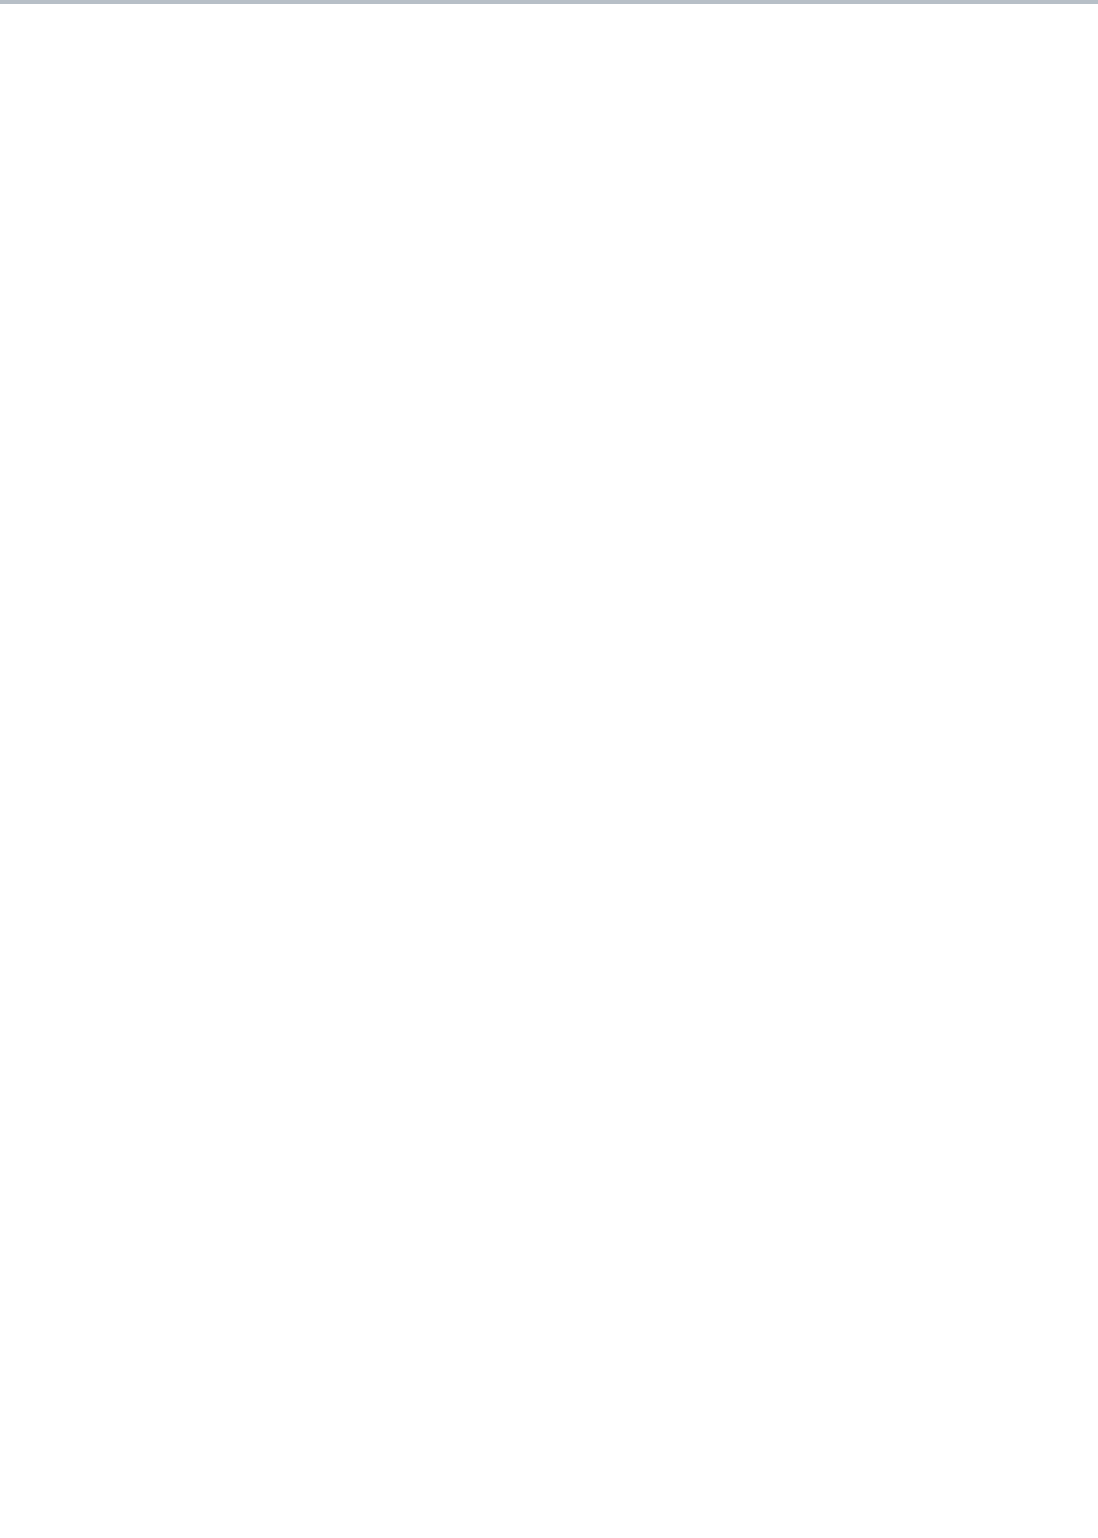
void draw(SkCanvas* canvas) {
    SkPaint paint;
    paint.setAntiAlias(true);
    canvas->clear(0xFFFFFFFF);
    paint.setColor(0xFFB7BFC7);
    canvas->drawRect(SkRect::MakeXYWH(0, 0, 1098, 4), paint);
}
